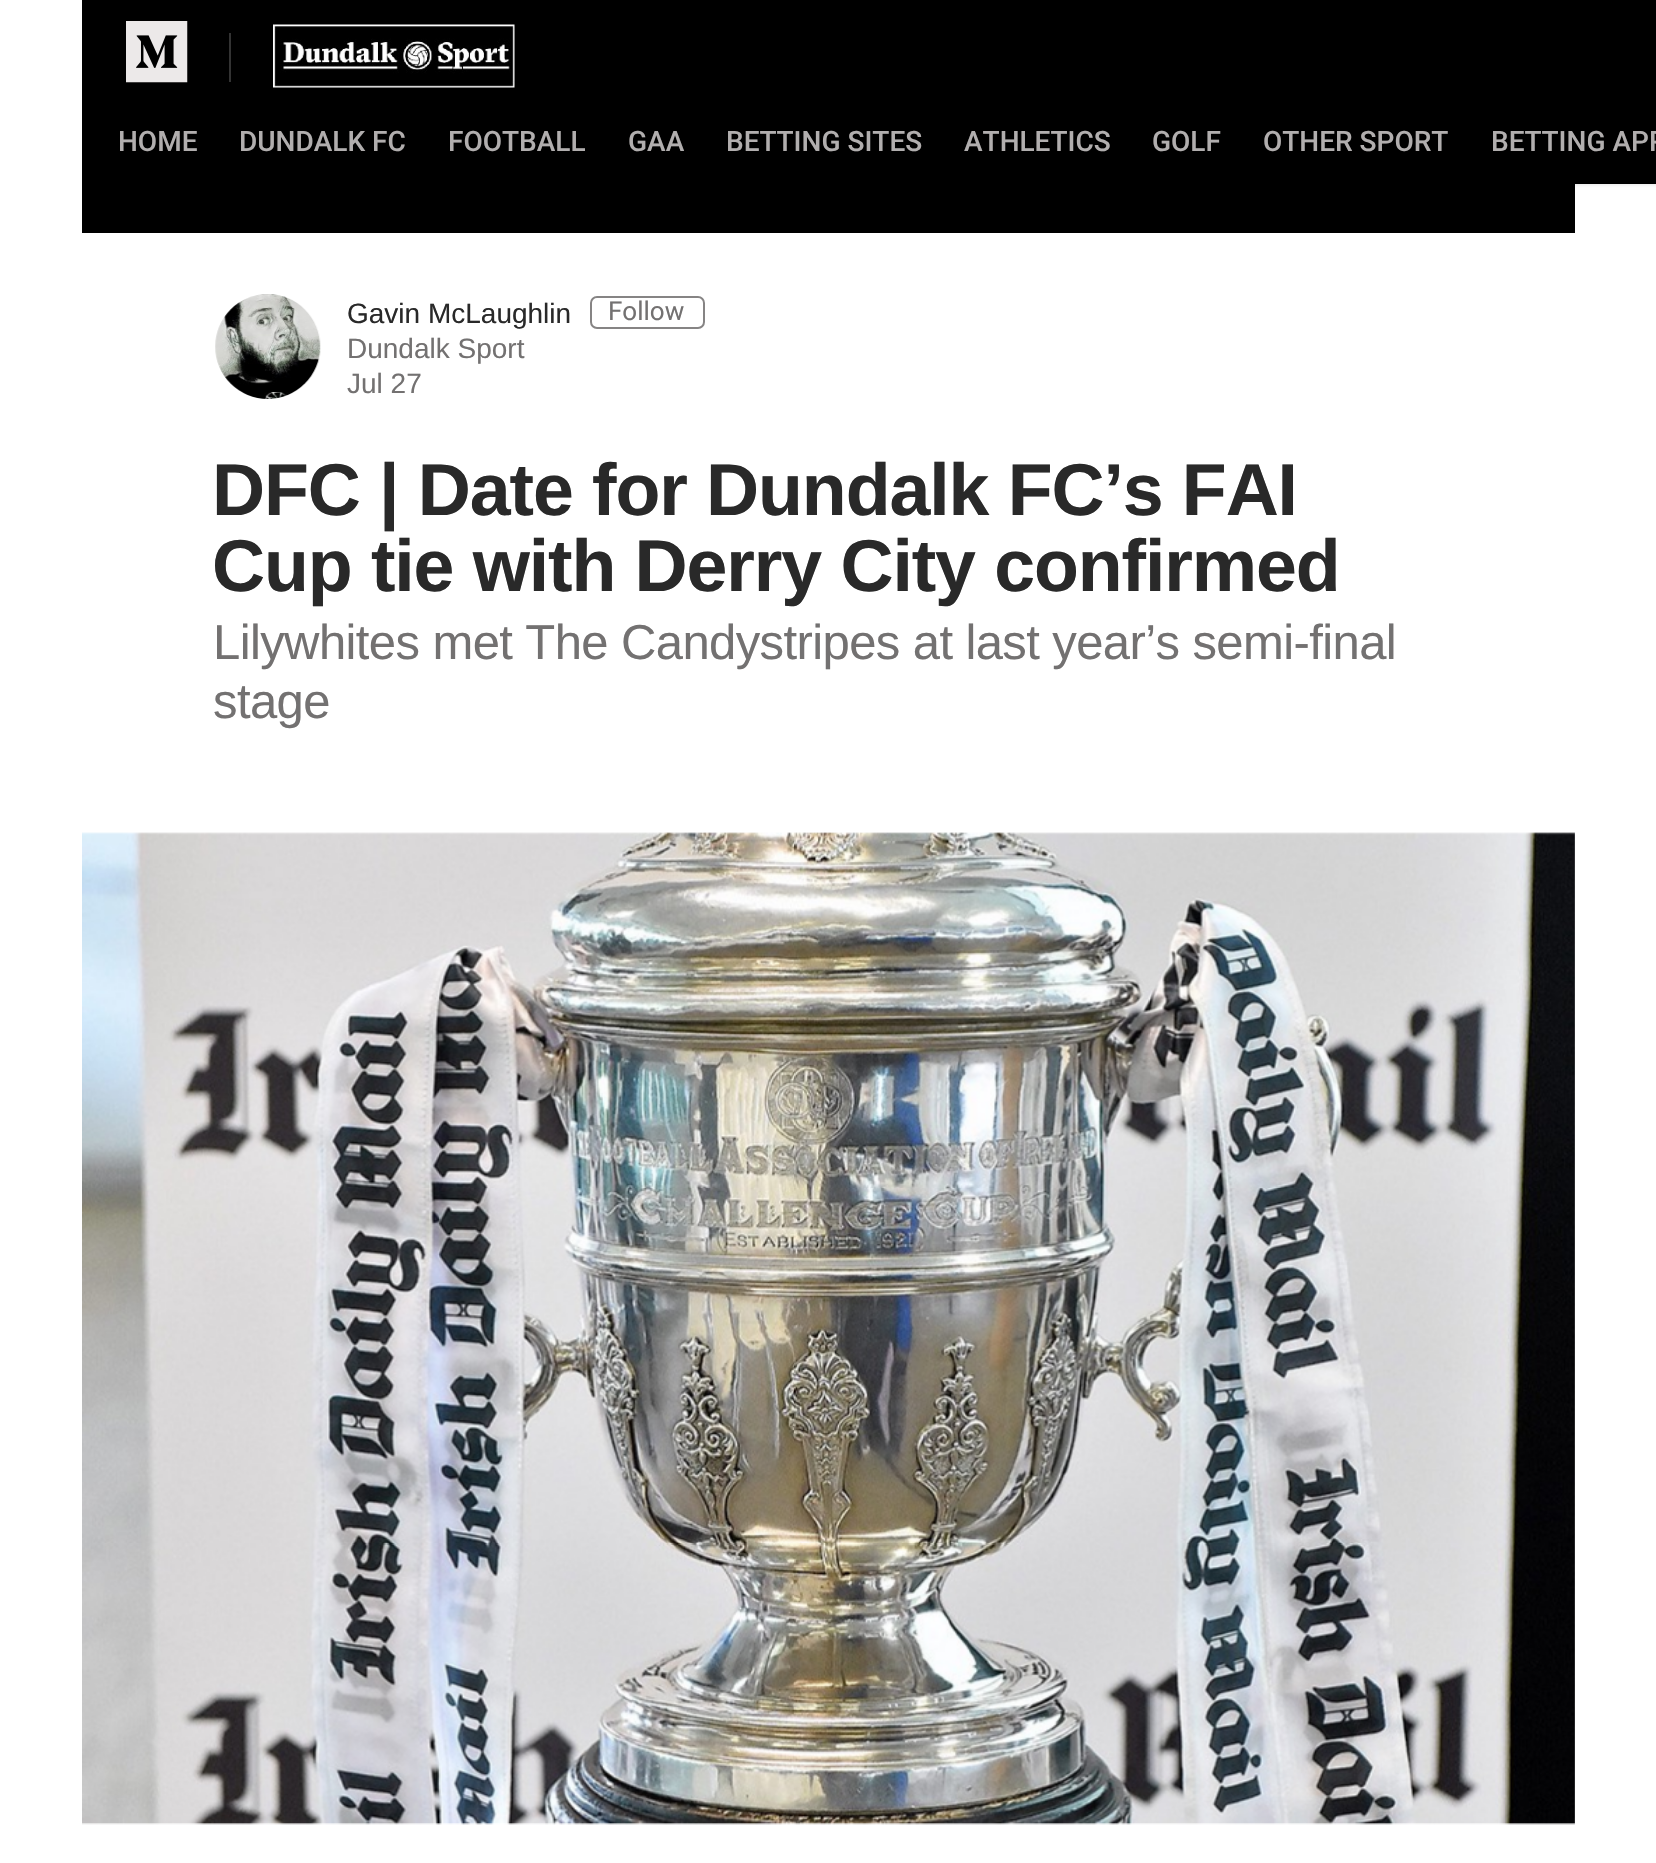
void draw(SkCanvas* canvas) {
    SkPaint paint;
    paint.setAntiAlias(true);
    auto spacedText = [&](const char* s, float x, float y, const SkFont& font, const SkPaint& ink, float letter, float word) {
        std::vector<SkGlyphID> glyphs(font.countText(s, strlen(s), SkTextEncoding::kUTF8));
        std::vector<float> xs(glyphs.size());
        font.textToGlyphs(s, strlen(s), SkTextEncoding::kUTF8, glyphs);
        font.getXPos(glyphs, xs, x);
        float extra = 0;
        for (size_t i = 0; i < glyphs.size(); i++) {
            xs[i] += extra;
            extra += letter + word * (glyphs[i] == font.unicharToGlyph(' '));
        }
        canvas->drawTextBlob(SkTextBlob::MakeFromPosHGlyphs(glyphs, xs, y, font), 0, 0, ink);
    };
    canvas->clear(0xFFFFFFFF);
    paint.setColor(0xFF000000);
    canvas->drawRect(SkRect::MakeXYWH(82, 184, 1493, 49), paint);
    paint.setColor(0x26000000);
    paint.setMaskFilter(SkMaskFilter::MakeBlur(kNormal_SkBlurStyle, 2));
    canvas->drawRect(SkRect::MakeXYWH(86, 7, 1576, 177), paint);
    paint.setMaskFilter(nullptr);
    paint.setColor(0xFF000000);
    canvas->drawRect(SkRect::MakeXYWH(82, 0, 1574, 184), paint);
    canvas->drawImageRect(SkImages::DeferredFromEncodedData(SkData::MakeFromFileName("img1.png")), SkRect::MakeXYWH(126, 21, 62, 62), SkSamplingOptions());
    paint.setColor(0xFF333333);
    canvas->drawRect(SkRect::MakeXYWH(229, 33, 2, 49), paint);
    canvas->drawImageRect(SkImages::DeferredFromEncodedData(SkData::MakeFromFileName("img2.png")), SkRect::MakeXYWH(273, 24, 242, 64), SkSamplingOptions());
    SkFont font1(fontMgr->matchFamilyStyle("Roboto", SkFontStyle(500, SkFontStyle::kNormal_Width, SkFontStyle::kUpright_Slant)), 28);
    font1.setSubpixel(true);
    paint.setColor(0xFFB1AEAE);
    canvas->drawString("HOME", 118, 151, font1, paint);
    canvas->drawString("DUNDALK FC", 239, 151, font1, paint);
    canvas->drawString("FOOTBALL", 448, 151, font1, paint);
    canvas->drawString("GAA", 628, 151, font1, paint);
    canvas->drawString("BETTING SITES", 726, 151, font1, paint);
    canvas->drawString("ATHLETICS", 964, 151, font1, paint);
    canvas->drawString("GOLF", 1152, 151, font1, paint);
    canvas->drawString("OTHER SPORT", 1263, 151, font1, paint);
    canvas->drawString("BETTING APP", 1491, 151, font1, paint);
    canvas->drawImageRect(SkImages::DeferredFromEncodedData(SkData::MakeFromFileName("img3.png")), SkRect::MakeXYWH(215, 294, 106, 105), SkSamplingOptions());
    SkFont font2(fontMgr->matchFamilyStyle("Liberation Sans", SkFontStyle::Normal()), 28);
    font2.setSubpixel(true);
    paint.setColor(0xFF292929);
    canvas->drawString("Gavin McLaughlin", 347, 323, font2, paint);
    paint.setStyle(SkPaint::kStroke_Style);
    paint.setStrokeWidth(2);
    paint.setColor(0xFF868484);
    canvas->drawRoundRect(SkRect::MakeXYWH(591, 297, 113, 31), 6, 6, paint);
    SkFont font3(fontMgr->matchFamilyStyle("Roboto", SkFontStyle::Normal()), 26);
    font3.setSubpixel(true);
    paint.setStyle(SkPaint::kFill_Style);
    paint.setColor(0xFF737171);
    canvas->drawString("Follow", 608, 320, font3, paint);
    canvas->drawString("Dundalk Sport", 347, 358, font2, paint);
    canvas->drawString("Jul 27", 347, 393, font2, paint);
    SkFont font4(fontMgr->matchFamilyStyle("Liberation Sans", SkFontStyle::Bold()), 73.5f);
    font4.setSubpixel(true);
    paint.setColor(0xFF292929);
    spacedText("DFC | Date for Dundalk FC’s FAI", 212, 515, font4, paint, -1.1f, 0);
    spacedText("Cup tie with Derry City confirmed", 212, 591, font4, paint, -1.1f, 0);
    SkFont font5(fontMgr->matchFamilyStyle("Liberation Sans", SkFontStyle::Normal()), 49);
    font5.setSubpixel(true);
    paint.setColor(0xFF737171);
    spacedText("Lilywhites met The Candystripes at last year’s semi-final", 213, 659, font5, paint, -0.6f, 0);
    spacedText("stage", 213, 718, font5, paint, -0.6f, 0);
    canvas->drawImageRect(SkImages::DeferredFromEncodedData(SkData::MakeFromFileName("img4.png")), SkRect::MakeXYWH(82, 832, 1493, 993), SkSamplingOptions());
}
